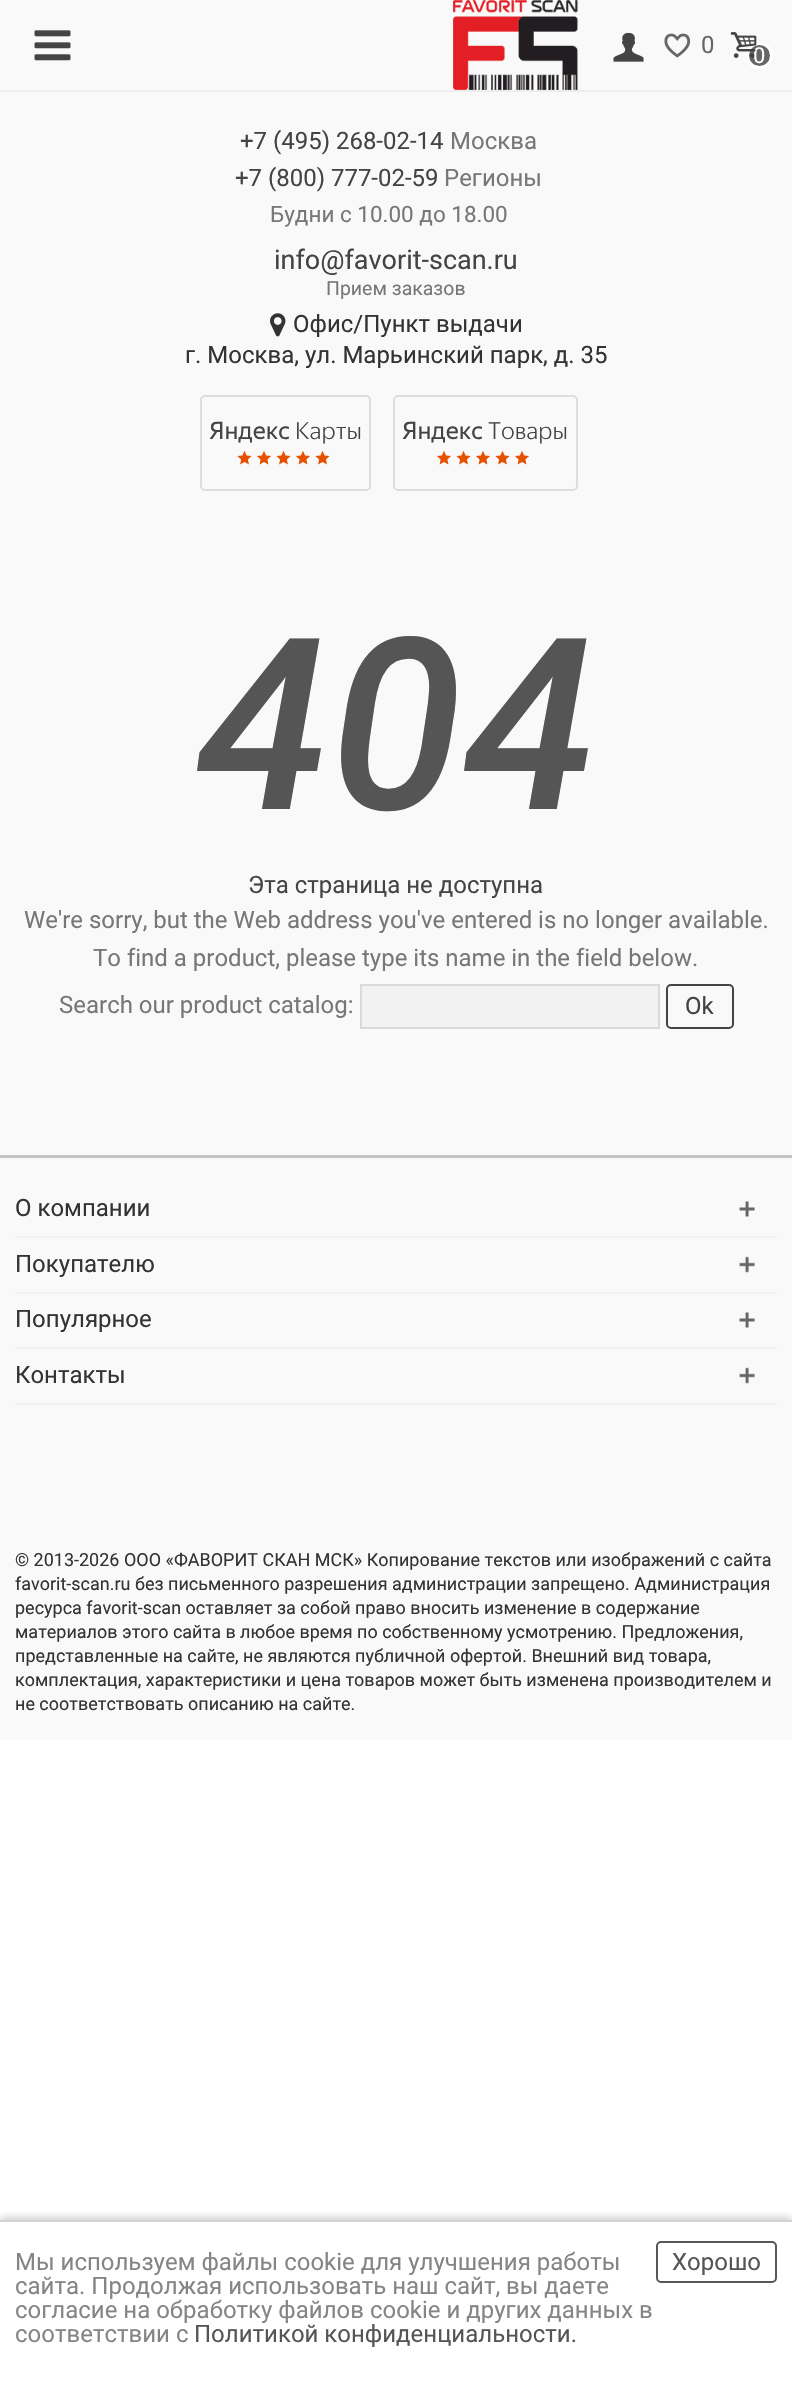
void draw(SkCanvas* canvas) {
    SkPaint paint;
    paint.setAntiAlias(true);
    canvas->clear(0xFFFFFFFF);
    paint.setColor(0xFFF9F9F9);
    canvas->drawRect(SkRect::MakeXYWH(0, 0, 792, 1740), paint);
    canvas->drawImageRect(SkImages::DeferredFromEncodedData(SkData::MakeFromFileName("img1.png")), SkRect::MakeXYWH(34, 30, 37, 31), SkSamplingOptions());
    canvas->drawImageRect(SkImages::DeferredFromEncodedData(SkData::MakeFromFileName("img2.png")), SkRect::MakeXYWH(453, 0, 125, 90), SkSamplingOptions());
    canvas->drawImageRect(SkImages::DeferredFromEncodedData(SkData::MakeFromFileName("img3.png")), SkRect::MakeXYWH(613, 32, 31, 30), SkSamplingOptions());
    canvas->drawImageRect(SkImages::DeferredFromEncodedData(SkData::MakeFromFileName("img4.png")), SkRect::MakeXYWH(664, 33, 26, 25), SkSamplingOptions());
    SkFont font1(fontMgr->matchFamilyStyle("Roboto", SkFontStyle::Normal()), 24);
    font1.setSubpixel(true);
    paint.setColor(0xFF666666);
    canvas->drawString("0", 701, 53, font1, paint);
    canvas->drawCircle(759.5f, 55.5f, 12, paint);
    paint.setStyle(SkPaint::kStroke_Style);
    paint.setStrokeWidth(3);
    paint.setColor(0xFFFFFFFF);
    canvas->drawCircle(759.5f, 55.5f, 12, paint);
    SkFont font2(fontMgr->matchFamilyStyle("Roboto", SkFontStyle::Normal()), 22);
    font2.setSubpixel(true);
    paint.setStyle(SkPaint::kFill_Style);
    canvas->drawString("0", 753, 63, font2, paint);
    canvas->drawImageRect(SkImages::DeferredFromEncodedData(SkData::MakeFromFileName("img5.png")), SkRect::MakeXYWH(730, 32, 27, 26), SkSamplingOptions());
    paint.setColor(0xFFEDEDED);
    canvas->drawRect(SkRect::MakeXYWH(0, 90, 792, 2), paint);
    paint.setColor(0xFF444444);
    canvas->drawString("+7 (495) 268-02-14", 240, 149, font1, paint);
    paint.setColor(0xFF777777);
    canvas->drawString("Москва", 450, 149, font1, paint);
    paint.setColor(0xFF444444);
    canvas->drawString("+7 (800) 777-02-59", 235, 186, font1, paint);
    paint.setColor(0xFF777777);
    canvas->drawString("Регионы", 444, 186, font1, paint);
    SkFont font3(fontMgr->matchFamilyStyle("Roboto", SkFontStyle::Normal()), 22.5f);
    font3.setSubpixel(true);
    canvas->drawString("Будни с 10.00 до 18.00", 270, 222, font3, paint);
    SkFont font4(fontMgr->matchFamilyStyle("Roboto", SkFontStyle::Normal()), 27);
    font4.setSubpixel(true);
    paint.setColor(0xFF444444);
    canvas->drawString("info@favorit-scan.ru", 274, 269, font4, paint);
    SkFont font5(fontMgr->matchFamilyStyle("Roboto", SkFontStyle::Normal()), 19.5f);
    font5.setSubpixel(true);
    paint.setColor(0xFF777777);
    canvas->drawString("Прием заказов", 326, 295, font5, paint);
    canvas->drawImageRect(SkImages::DeferredFromEncodedData(SkData::MakeFromFileName("img6.png")), SkRect::MakeXYWH(270, 313, 16, 24), SkSamplingOptions());
    paint.setColor(0xFF333333);
    canvas->drawString("Офис/Пункт выдачи", 293, 332, font1, paint);
    canvas->drawString("г. Москва, ул. Марьинский парк, д. 35", 185, 363, font1, paint);
    paint.setStyle(SkPaint::kStroke_Style);
    paint.setStrokeWidth(2);
    paint.setColor(0xFFDDDDDD);
    canvas->drawRoundRect(SkRect::MakeXYWH(201, 396, 169, 94), 4, 4, paint);
    SkFont font6(fontMgr->matchFamilyStyle("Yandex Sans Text", SkFontStyle::Normal()), 24);
    font6.setSubpixel(true);
    paint.setStyle(SkPaint::kFill_Style);
    paint.setColor(0xFF444444);
    canvas->drawString("Яндекс", 209, 439, font6, paint);
    SkFont font7(fontMgr->matchFamilyStyle("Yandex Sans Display", SkFontStyle(300, SkFontStyle::kNormal_Width, SkFontStyle::kUpright_Slant)), 24);
    font7.setSubpixel(true);
    canvas->drawString("Карты", 295, 439, font7, paint);
    canvas->drawImageRect(SkImages::DeferredFromEncodedData(SkData::MakeFromFileName("img7.png")), SkRect::MakeXYWH(237, 450, 15, 15), SkSamplingOptions());
    canvas->drawImageRect(SkImages::DeferredFromEncodedData(SkData::MakeFromFileName("img8.png")), SkRect::MakeXYWH(257, 451, 14, 14), SkSamplingOptions());
    canvas->drawImageRect(SkImages::DeferredFromEncodedData(SkData::MakeFromFileName("img7.png")), SkRect::MakeXYWH(276, 450, 15, 15), SkSamplingOptions());
    canvas->drawImageRect(SkImages::DeferredFromEncodedData(SkData::MakeFromFileName("img8.png")), SkRect::MakeXYWH(296, 451, 14, 14), SkSamplingOptions());
    canvas->drawImageRect(SkImages::DeferredFromEncodedData(SkData::MakeFromFileName("img7.png")), SkRect::MakeXYWH(315, 450, 15, 15), SkSamplingOptions());
    paint.setStyle(SkPaint::kStroke_Style);
    paint.setColor(0xFFDDDDDD);
    canvas->drawRoundRect(SkRect::MakeXYWH(394, 396, 183, 94), 4, 4, paint);
    paint.setStyle(SkPaint::kFill_Style);
    paint.setColor(0xFF444444);
    canvas->drawString("Яндекс", 402, 439, font6, paint);
    canvas->drawString("Товары", 488, 439, font7, paint);
    canvas->drawImageRect(SkImages::DeferredFromEncodedData(SkData::MakeFromFileName("img8.png")), SkRect::MakeXYWH(437, 451, 14, 14), SkSamplingOptions());
    canvas->drawImageRect(SkImages::DeferredFromEncodedData(SkData::MakeFromFileName("img7.png")), SkRect::MakeXYWH(456, 450, 15, 15), SkSamplingOptions());
    canvas->drawImageRect(SkImages::DeferredFromEncodedData(SkData::MakeFromFileName("img8.png")), SkRect::MakeXYWH(476, 451, 14, 14), SkSamplingOptions());
    canvas->drawImageRect(SkImages::DeferredFromEncodedData(SkData::MakeFromFileName("img9.png")), SkRect::MakeXYWH(495, 450, 15, 15), SkSamplingOptions());
    canvas->drawImageRect(SkImages::DeferredFromEncodedData(SkData::MakeFromFileName("img8.png")), SkRect::MakeXYWH(515, 451, 14, 14), SkSamplingOptions());
    SkFont font8(fontMgr->matchFamilyStyle("Roboto", SkFontStyle(500, SkFontStyle::kNormal_Width, SkFontStyle::kItalic_Slant)), 240);
    font8.setSubpixel(true);
    paint.setColor(0xFF555555);
    canvas->drawString("404", 196, 809, font8, paint);
    paint.setColor(0xFF444444);
    canvas->drawString("Эта страница не доступна", 248, 893, font1, paint);
    paint.setColor(0xFF777777);
    canvas->drawString("We're sorry, but the Web address you've entered is no longer available.", 24, 928, font1, paint);
    canvas->drawString("To find a product, please type its name in the field below.", 93, 966, font1, paint);
    canvas->drawString("Search our product catalog:", 59, 1013, font1, paint);
    paint.setColor(0xFFF2F2F2);
    canvas->drawRect(SkRect::MakeXYWH(361, 985, 298, 43), paint);
    paint.setStyle(SkPaint::kStroke_Style);
    paint.setColor(0xFFDADADA);
    canvas->drawRect(SkRect::MakeXYWH(361, 985, 298, 43), paint);
    paint.setColor(0xFF444444);
    canvas->drawRoundRect(SkRect::MakeXYWH(667, 985, 66, 43), 4, 4, paint);
    paint.setStyle(SkPaint::kFill_Style);
    canvas->drawString("Ok", 685, 1014, font1, paint);
    paint.setColor(0xFFC4C3C3);
    canvas->drawRect(SkRect::MakeXYWH(0, 1155, 792, 3), paint);
    paint.setColor(0xFFF2F2F2);
    canvas->drawRect(SkRect::MakeXYWH(15, 1236, 762, 2), paint);
    paint.setColor(0xFF333333);
    canvas->drawString("О компании", 15, 1216, font1, paint);
    canvas->drawImageRect(SkImages::DeferredFromEncodedData(SkData::MakeFromFileName("img10.png")), SkRect::MakeXYWH(739, 1201, 16, 16), SkSamplingOptions());
    paint.setColor(0xFFF2F2F2);
    canvas->drawRect(SkRect::MakeXYWH(15, 1292, 762, 2), paint);
    paint.setColor(0xFF333333);
    canvas->drawString("Покупателю", 15, 1272, font1, paint);
    canvas->drawImageRect(SkImages::DeferredFromEncodedData(SkData::MakeFromFileName("img11.png")), SkRect::MakeXYWH(739, 1256, 16, 17), SkSamplingOptions());
    paint.setColor(0xFFF2F2F2);
    canvas->drawRect(SkRect::MakeXYWH(15, 1347, 762, 2), paint);
    paint.setColor(0xFF333333);
    canvas->drawString("Популярное", 15, 1327, font1, paint);
    canvas->drawImageRect(SkImages::DeferredFromEncodedData(SkData::MakeFromFileName("img10.png")), SkRect::MakeXYWH(739, 1312, 16, 16), SkSamplingOptions());
    paint.setColor(0xFFF2F2F2);
    canvas->drawRect(SkRect::MakeXYWH(15, 1403, 762, 2), paint);
    paint.setColor(0xFF333333);
    canvas->drawString("Контакты", 15, 1383, font1, paint);
    canvas->drawImageRect(SkImages::DeferredFromEncodedData(SkData::MakeFromFileName("img11.png")), SkRect::MakeXYWH(739, 1367, 16, 17), SkSamplingOptions());
    SkFont font9(fontMgr->matchFamilyStyle("Roboto", SkFontStyle::Normal()), 18);
    font9.setSubpixel(true);
    canvas->drawString("© 2013-2026 ООО «ФАВОРИТ СКАН МСК» Копирование текстов или изображений с сайта", 15, 1566, font9, paint);
    canvas->drawString("favorit-scan.ru без письменного разрешения администрации запрещено. Администрация", 15, 1590, font9, paint);
    canvas->drawString("ресурса favorit-scan оставляет за собой право вносить изменение в содержание", 15, 1614, font9, paint);
    canvas->drawString("материалов этого сайта в любое время по собственному усмотрению. Предложения,", 15, 1638, font9, paint);
    canvas->drawString("представленные на сайте, не являются публичной офертой. Внешний вид товара,", 15, 1662, font9, paint);
    canvas->drawString("комплектация, характеристики и цена товаров может быть изменена производителем и", 15, 1686, font9, paint);
    canvas->drawString("не соответствовать описанию на сайте.", 15, 1710, font9, paint);
    canvas->save();
    canvas->clipRect(SkRect::MakeXYWH(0, 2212, 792, 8));
    paint.setColor(0x331A1A1A);
    paint.setMaskFilter(SkMaskFilter::MakeBlur(kNormal_SkBlurStyle, 4));
    canvas->drawRect(SkRect::MakeXYWH(0, 2217, 792, 168), paint);
    paint.setMaskFilter(nullptr);
    canvas->restore();
    paint.setColor(0xFFD3D3D3);
    canvas->drawRect(SkRect::MakeXYWH(0, 2220, 792, 2), paint);
    paint.setColor(0xFF858585);
    canvas->drawString("Мы используем файлы cookie для улучшения работы", 15, 2270, font1, paint);
    canvas->drawString("сайта. Продолжая использовать наш сайт, вы даете", 15, 2294, font1, paint);
    canvas->drawString("согласие на обработку файлов cookie и других данных в", 15, 2318, font1, paint);
    canvas->drawString("соответствии с", 15, 2342, font1, paint);
    paint.setColor(0xFF555555);
    canvas->drawString("Политикой конфиденциальности.", 194, 2342, font1, paint);
    paint.setStyle(SkPaint::kStroke_Style);
    paint.setColor(0xFF575757);
    canvas->drawRoundRect(SkRect::MakeXYWH(657, 2242, 119, 40), 4, 4, paint);
    paint.setStyle(SkPaint::kFill_Style);
    paint.setColor(0xFF555555);
    canvas->drawString("Хорошо", 672, 2270, font1, paint);
}
